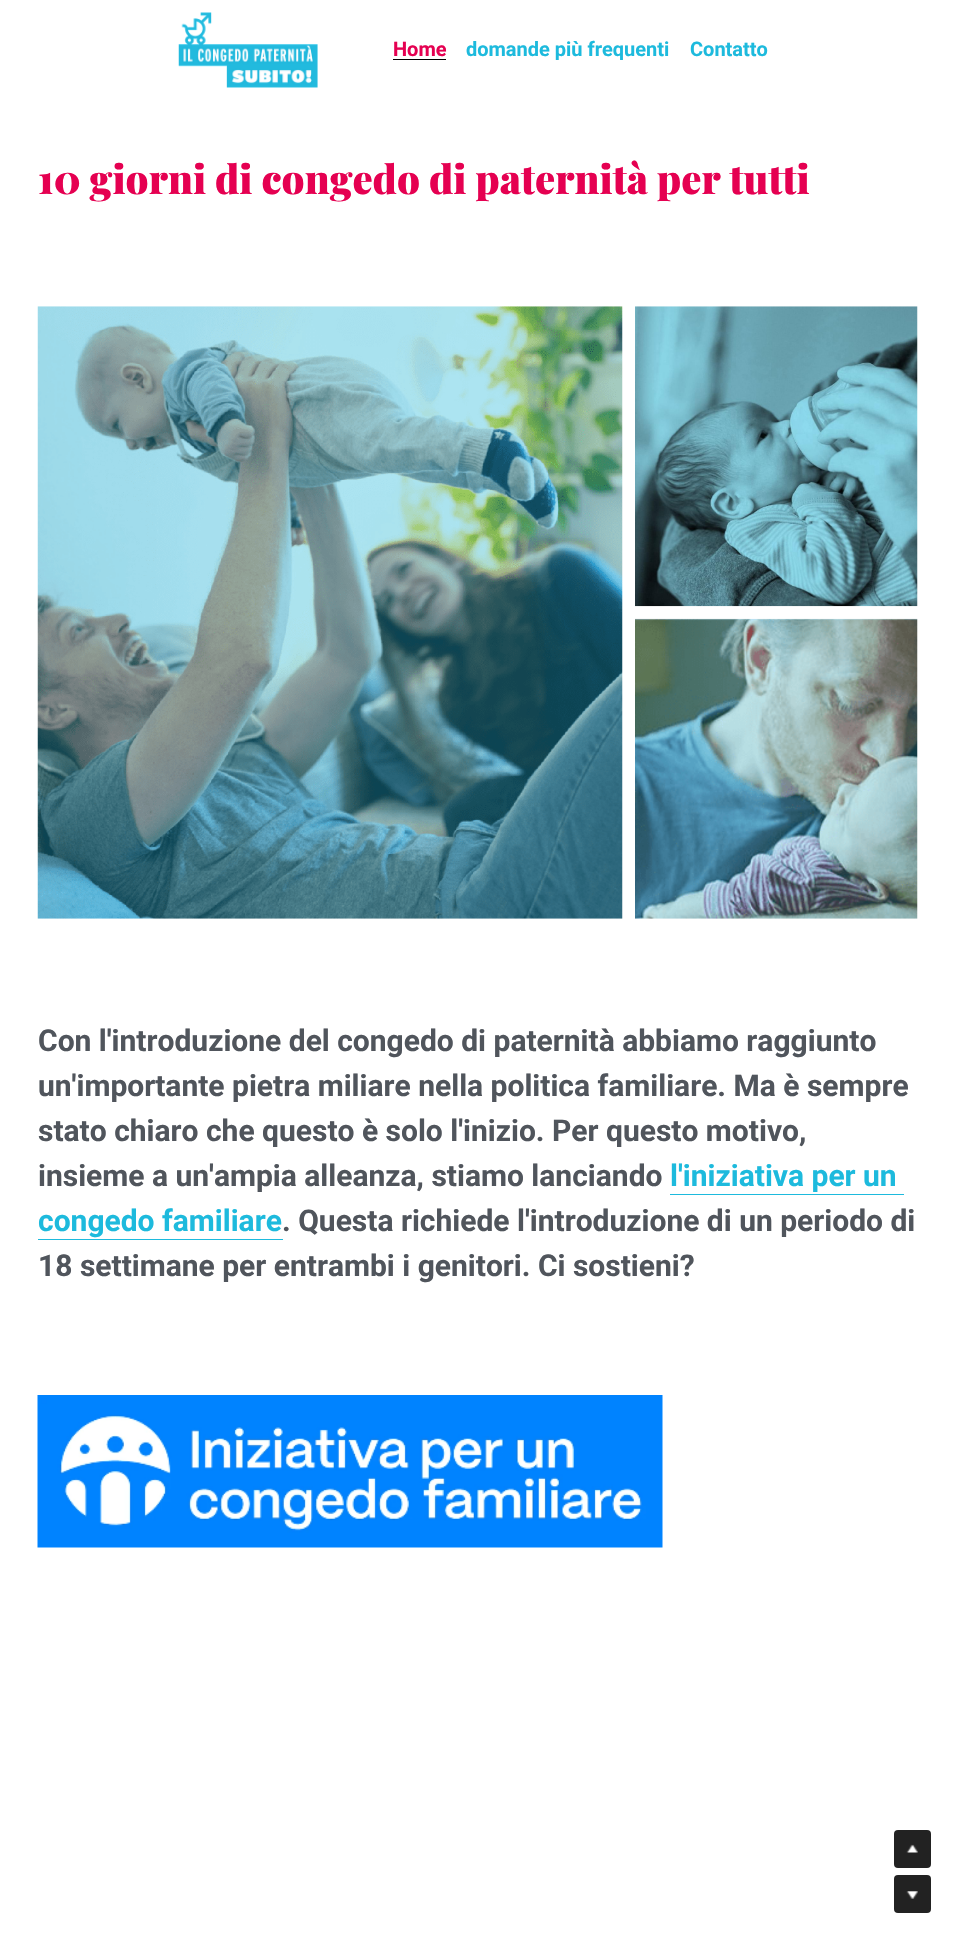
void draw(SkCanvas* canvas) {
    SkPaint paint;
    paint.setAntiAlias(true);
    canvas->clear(0xFFFFFFFF);
    canvas->drawImageRect(SkImages::DeferredFromEncodedData(SkData::MakeFromFileName("img1.png")), SkRect::MakeXYWH(178, 12, 140, 76), SkSamplingOptions());
    paint.setColor(0xFF000000);
    canvas->drawRect(SkRect::MakeXYWH(393, 59, 53, 1), paint);
    SkFont font1(fontMgr->matchFamilyStyle("Roboto", SkFontStyle::Bold()), 20);
    font1.setSubpixel(true);
    paint.setColor(0xFFE50051);
    canvas->drawString("Home", 393, 56, font1, paint);
    paint.setColor(0xFF1DBADD);
    canvas->drawString("domande più frequenti", 466, 56, font1, paint);
    canvas->drawString("Contatto", 690, 56, font1, paint);
    SkFont font2(fontMgr->matchFamilyStyle("Playfair Display", SkFontStyle(900, SkFontStyle::kNormal_Width, SkFontStyle::kUpright_Slant)), 40);
    font2.setSubpixel(true);
    paint.setColor(0xFFE50051);
    canvas->drawString("10 giorni di congedo di paternità per tutti", 38, 194, font2, paint);
    canvas->drawImageRect(SkImages::DeferredFromEncodedData(SkData::MakeFromFileName("img2.png")), SkRect::MakeXYWH(37, 306, 586, 613), SkSamplingOptions());
    canvas->drawImageRect(SkImages::DeferredFromEncodedData(SkData::MakeFromFileName("img3.png")), SkRect::MakeXYWH(635, 306, 283, 301), SkSamplingOptions());
    canvas->drawImageRect(SkImages::DeferredFromEncodedData(SkData::MakeFromFileName("img4.png")), SkRect::MakeXYWH(635, 618, 283, 301), SkSamplingOptions());
    SkFont font3(fontMgr->matchFamilyStyle("Roboto", SkFontStyle::Bold()), 30);
    font3.setSubpixel(true);
    paint.setColor(0xFF50555C);
    canvas->drawString("Con l'introduzione del congedo di paternità abbiamo raggiunto", 38, 1051, font3, paint);
    canvas->drawString("un'importante pietra miliare nella politica familiare. Ma è sempre", 38, 1096, font3, paint);
    canvas->drawString("stato chiaro che questo è solo l'inizio. Per questo motivo,", 38, 1141, font3, paint);
    canvas->drawString("insieme a un'ampia alleanza, stiamo lanciando", 38, 1186, font3, paint);
    paint.setColor(0xFF1DBADD);
    canvas->drawString("l'iniziativa per un", 670, 1186, font3, paint);
    canvas->drawRect(SkRect::MakeXYWH(670, 1194, 234, 1), paint);
    canvas->drawString("congedo familiare", 38, 1231, font3, paint);
    canvas->drawRect(SkRect::MakeXYWH(38, 1239, 245, 1), paint);
    paint.setColor(0xFF50555C);
    canvas->drawString(". Questa richiede l'introduzione di un periodo di", 282, 1231, font3, paint);
    canvas->drawString("18 settimane per entrambi i genitori. Ci sostieni?", 38, 1276, font3, paint);
    canvas->drawImageRect(SkImages::DeferredFromEncodedData(SkData::MakeFromFileName("img5.png")), SkRect::MakeXYWH(37, 1395, 626, 153), SkSamplingOptions());
    paint.setColor(0xFF222222);
    canvas->drawRoundRect(SkRect::MakeXYWH(894, 1830, 37, 38), 4, 4, paint);
    canvas->drawImageRect(SkImages::DeferredFromEncodedData(SkData::MakeFromFileName("img6.png")), SkRect::MakeXYWH(906, 1844, 12, 9), SkSamplingOptions());
    canvas->drawRoundRect(SkRect::MakeXYWH(894, 1875, 37, 38), 4, 4, paint);
    canvas->drawImageRect(SkImages::DeferredFromEncodedData(SkData::MakeFromFileName("img7.png")), SkRect::MakeXYWH(906, 1891, 12, 8), SkSamplingOptions());
}
